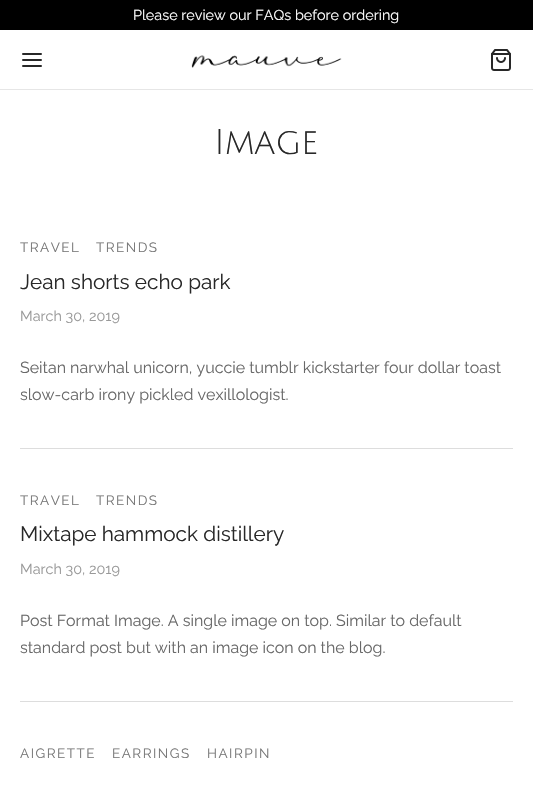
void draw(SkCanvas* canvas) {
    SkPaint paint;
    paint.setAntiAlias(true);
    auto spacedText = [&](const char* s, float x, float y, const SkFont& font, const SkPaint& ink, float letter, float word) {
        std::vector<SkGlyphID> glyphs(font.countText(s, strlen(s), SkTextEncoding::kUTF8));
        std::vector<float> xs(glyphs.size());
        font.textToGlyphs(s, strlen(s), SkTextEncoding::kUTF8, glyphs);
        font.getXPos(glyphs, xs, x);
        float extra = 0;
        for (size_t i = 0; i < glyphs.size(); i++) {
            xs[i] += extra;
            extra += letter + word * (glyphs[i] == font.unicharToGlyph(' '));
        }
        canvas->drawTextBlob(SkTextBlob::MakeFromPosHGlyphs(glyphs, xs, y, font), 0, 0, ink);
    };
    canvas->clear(0xFFFFFFFF);
    paint.setColor(0xFF000000);
    canvas->drawRect(SkRect::MakeXYWH(0, 0, 533, 30), paint);
    SkFont font1(fontMgr->matchFamilyStyle("Raleway", SkFontStyle(100, SkFontStyle::kNormal_Width, SkFontStyle::kUpright_Slant)), 14.4f);
    font1.setSubpixel(true);
    paint.setColor(0xFFFFFFFF);
    canvas->drawString("Please review our FAQs before ordering", 133, 20, font1, paint);
    paint.setStyle(SkPaint::kStroke_Style);
    paint.setStrokeWidth(2);
    paint.setStrokeCap(SkPaint::kRound_Cap);
    paint.setStrokeJoin(SkPaint::kRound_Join);
    paint.setColor(0xFF282828);
    canvas->drawPath(SkPathBuilder().moveTo(23, 60).lineTo(41, 60).moveTo(23, 54).lineTo(41, 54).moveTo(23, 66).lineTo(41, 66).detach(), paint);
    canvas->drawImageRect(SkImages::DeferredFromEncodedData(SkData::MakeFromFileName("img1.png")), SkRect::MakeXYWH(191, 55, 151, 13), SkSamplingOptions());
    canvas->drawImageRect(SkImages::DeferredFromEncodedData(SkData::MakeFromFileName("img2.png")), SkRect::MakeXYWH(491, 49, 20, 22), SkSamplingOptions());
    paint.setStyle(SkPaint::kFill_Style);
    paint.setColor(0xFFE6E6E6);
    canvas->drawRect(SkRect::MakeXYWH(0, 89, 533, 1), paint);
    SkFont font2(fontMgr->matchFamilyStyle("Julius Sans One", SkFontStyle::Normal()), 35);
    font2.setSubpixel(true);
    paint.setColor(0xFF282828);
    canvas->drawString("Image", 214, 154, font2, paint);
    SkFont font3(fontMgr->matchFamilyStyle("Raleway", SkFontStyle(100, SkFontStyle::kNormal_Width, SkFontStyle::kUpright_Slant)), 13.5f);
    font3.setSubpixel(true);
    paint.setColor(0xFF777777);
    spacedText("TRAVEL", 20, 252, font3, paint, 1.5f, 0);
    spacedText("TRENDS", 96, 252, font3, paint, 1.5f, 0);
    SkFont font4(fontMgr->matchFamilyStyle("Raleway", SkFontStyle(100, SkFontStyle::kNormal_Width, SkFontStyle::kUpright_Slant)), 20.75f);
    font4.setSubpixel(true);
    paint.setColor(0xFF282828);
    canvas->drawString("Jean shorts echo park", 20, 289, font4, paint);
    paint.setColor(0xFF999999);
    canvas->drawString("March 30, 2019", 20, 321, font1, paint);
    SkFont font5(fontMgr->matchFamilyStyle("Raleway", SkFontStyle(100, SkFontStyle::kNormal_Width, SkFontStyle::kUpright_Slant)), 16);
    font5.setSubpixel(true);
    paint.setColor(0xFF686868);
    canvas->drawString("Seitan narwhal unicorn, yuccie tumblr kickstarter four dollar toast", 20, 373, font5, paint);
    canvas->drawString("slow-carb irony pickled vexillologist.", 20, 400, font5, paint);
    paint.setColor(0xFFDDDDDD);
    canvas->drawRect(SkRect::MakeXYWH(20, 448, 493, 1), paint);
    paint.setColor(0xFF777777);
    spacedText("TRAVEL", 20, 505, font3, paint, 1.5f, 0);
    spacedText("TRENDS", 96, 505, font3, paint, 1.5f, 0);
    paint.setColor(0xFF282828);
    canvas->drawString("Mixtape hammock distillery", 20, 541, font4, paint);
    paint.setColor(0xFF999999);
    canvas->drawString("March 30, 2019", 20, 574, font1, paint);
    paint.setColor(0xFF686868);
    canvas->drawString("Post Format Image. A single image on top. Similar to default", 20, 626, font5, paint);
    canvas->drawString("standard post but with an image icon on the blog.", 20, 653, font5, paint);
    paint.setColor(0xFFDDDDDD);
    canvas->drawRect(SkRect::MakeXYWH(20, 701, 493, 1), paint);
    paint.setColor(0xFF777777);
    spacedText("AIGRETTE", 20, 758, font3, paint, 1.5f, 0);
    spacedText("EARRINGS", 112, 758, font3, paint, 1.5f, 0);
    spacedText("HAIRPIN", 207, 758, font3, paint, 1.5f, 0);
}
